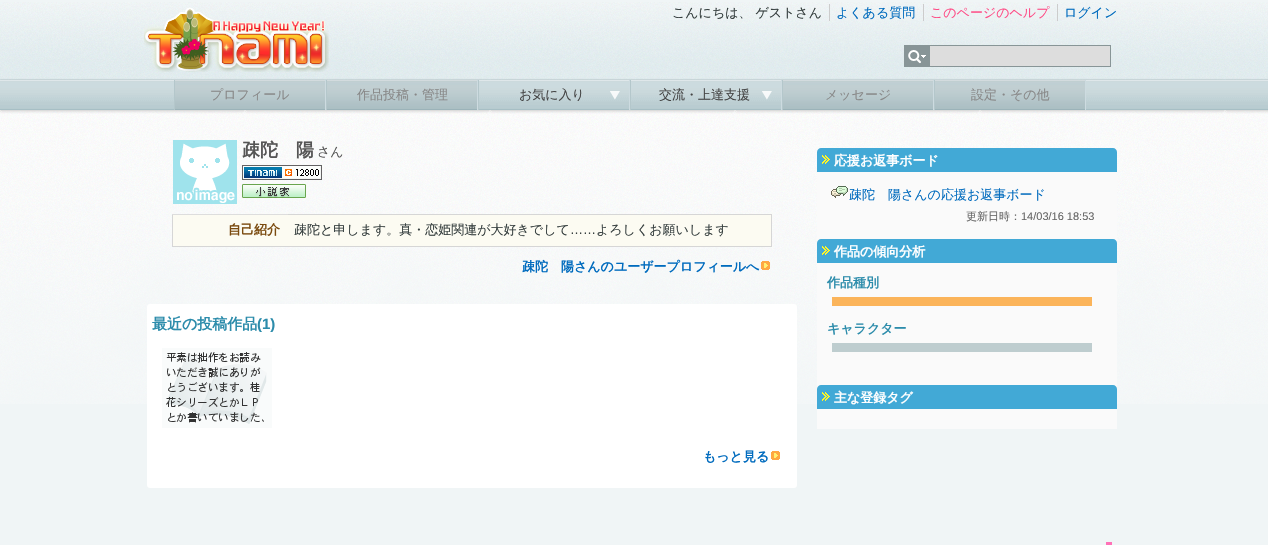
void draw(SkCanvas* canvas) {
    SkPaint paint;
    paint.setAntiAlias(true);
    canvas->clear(0xFFF0F5F6);
    canvas->drawImageRect(SkImages::DeferredFromEncodedData(SkData::MakeFromFileName("img1.png")), SkRect::MakeXYWH(0, 2, 1268, 402), SkSamplingOptions());
    canvas->drawImageRect(SkImages::DeferredFromEncodedData(SkData::MakeFromFileName("img2.png")), SkRect::MakeXYWH(144, 7, 185, 65), SkSamplingOptions());
    SkFont font1(fontMgr->matchFamilyStyle("WenQuanYi Zen Hei", SkFontStyle(500, SkFontStyle::kNormal_Width, SkFontStyle::kUpright_Slant)), 13);
    font1.setSubpixel(true);
    paint.setColor(0xFF363F3F);
    canvas->drawString("こんにちは、 ゲストさん", 672, 17, font1, paint);
    paint.setColor(0xFF006BBE);
    canvas->drawString("よくある質問", 836, 17, font1, paint);
    paint.setColor(0xFFCCCCCC);
    canvas->drawRect(SkRect::MakeXYWH(829, 4, 1, 17), paint);
    paint.setColor(0xFFFF4B85);
    canvas->drawString("このページのヘルプ", 930, 17, font1, paint);
    paint.setColor(0xFFCCCCCC);
    canvas->drawRect(SkRect::MakeXYWH(923, 4, 1, 17), paint);
    paint.setColor(0xFF006BBE);
    canvas->drawString("ログイン", 1064, 17, font1, paint);
    paint.setColor(0xFFCCCCCC);
    canvas->drawRect(SkRect::MakeXYWH(1057, 4, 1, 17), paint);
    canvas->drawImageRect(SkImages::DeferredFromEncodedData(SkData::MakeFromFileName("img3.png")), SkRect::MakeXYWH(904, 45, 25, 22), SkSamplingOptions());
    paint.setColor(0xFFDDDDDD);
    canvas->drawRect(SkRect::MakeXYWH(929.5f, 45.5f, 181, 21), paint);
    paint.setStyle(SkPaint::kStroke_Style);
    paint.setStrokeWidth(1);
    paint.setColor(0xFF889597);
    canvas->drawRect(SkRect::MakeXYWH(929.5f, 45.5f, 181, 21), paint);
    canvas->drawImageRect(SkImages::DeferredFromEncodedData(SkData::MakeFromFileName("img4.png")), SkRect::MakeXYWH(175, 80, 150, 30), SkSamplingOptions());
    paint.setStyle(SkPaint::kFill_Style);
    paint.setColor(0xFFCDDBE0);
    canvas->drawRect(SkRect::MakeXYWH(325, 80, 1, 30), paint);
    paint.setColor(0xFFB4C7CB);
    canvas->drawRect(SkRect::MakeXYWH(174, 80, 1, 30), paint);
    paint.setColor(0xFF888888);
    canvas->drawString("プロフィール", 210, 99, font1, paint);
    canvas->drawImageRect(SkImages::DeferredFromEncodedData(SkData::MakeFromFileName("img4.png")), SkRect::MakeXYWH(327, 80, 150, 30), SkSamplingOptions());
    paint.setColor(0xFFCDDBE0);
    canvas->drawRect(SkRect::MakeXYWH(477, 80, 1, 30), paint);
    paint.setColor(0xFFB4C7CB);
    canvas->drawRect(SkRect::MakeXYWH(326, 80, 1, 30), paint);
    paint.setColor(0xFF888888);
    canvas->drawString("作品投稿・管理", 357, 99, font1, paint);
    canvas->drawImageRect(SkImages::DeferredFromEncodedData(SkData::MakeFromFileName("img5.png")), SkRect::MakeXYWH(610, 91, 10, 9), SkSamplingOptions());
    paint.setColor(0xFFCDDBE0);
    canvas->drawRect(SkRect::MakeXYWH(629, 80, 1, 30), paint);
    paint.setColor(0xFFB4C7CB);
    canvas->drawRect(SkRect::MakeXYWH(478, 80, 1, 30), paint);
    paint.setColor(0xFF444444);
    canvas->drawString("お気に入り", 519, 99, font1, paint);
    canvas->drawImageRect(SkImages::DeferredFromEncodedData(SkData::MakeFromFileName("img5.png")), SkRect::MakeXYWH(762, 91, 10, 9), SkSamplingOptions());
    paint.setColor(0xFFCDDBE0);
    canvas->drawRect(SkRect::MakeXYWH(781, 80, 1, 30), paint);
    paint.setColor(0xFFB4C7CB);
    canvas->drawRect(SkRect::MakeXYWH(630, 80, 1, 30), paint);
    paint.setColor(0xFF444444);
    canvas->drawString("交流・上達支援", 659, 99, font1, paint);
    canvas->drawImageRect(SkImages::DeferredFromEncodedData(SkData::MakeFromFileName("img4.png")), SkRect::MakeXYWH(783, 80, 150, 30), SkSamplingOptions());
    paint.setColor(0xFFCDDBE0);
    canvas->drawRect(SkRect::MakeXYWH(933, 80, 1, 30), paint);
    paint.setColor(0xFFB4C7CB);
    canvas->drawRect(SkRect::MakeXYWH(782, 80, 1, 30), paint);
    paint.setColor(0xFF888888);
    canvas->drawString("メッセージ", 825, 99, font1, paint);
    canvas->drawImageRect(SkImages::DeferredFromEncodedData(SkData::MakeFromFileName("img4.png")), SkRect::MakeXYWH(935, 80, 150, 30), SkSamplingOptions());
    paint.setColor(0xFFCDDBE0);
    canvas->drawRect(SkRect::MakeXYWH(1085, 80, 1, 30), paint);
    paint.setColor(0xFFB4C7CB);
    canvas->drawRect(SkRect::MakeXYWH(934, 80, 1, 30), paint);
    paint.setColor(0xFF888888);
    canvas->drawString("設定・その他", 971, 99, font1, paint);
    canvas->drawImageRect(SkImages::DeferredFromEncodedData(SkData::MakeFromFileName("img6.png")), SkRect::MakeXYWH(173, 140, 64, 64), SkSamplingOptions());
    SkFont font2(fontMgr->matchFamilyStyle("WenQuanYi Zen Hei", SkFontStyle::Bold()), 18);
    font2.setSubpixel(true);
    paint.setColor(0xFF555555);
    canvas->drawString("疎陀　陽", 242, 156, font2, paint);
    canvas->drawString("さん", 317, 156, font1, paint);
    canvas->drawImageRect(SkImages::DeferredFromEncodedData(SkData::MakeFromFileName("img7.png")), SkRect::MakeXYWH(242, 165, 80, 15), SkSamplingOptions());
    canvas->drawImageRect(SkImages::DeferredFromEncodedData(SkData::MakeFromFileName("img8.png")), SkRect::MakeXYWH(242, 184, 64, 14), SkSamplingOptions());
    paint.setColor(0xFFFCFBF2);
    canvas->drawRect(SkRect::MakeXYWH(173, 215, 598, 31), paint);
    paint.setColor(0xFFD6D6D6);
    canvas->drawRect(SkRect::MakeXYWH(288, 214, 484, 1), paint);
    canvas->drawRect(SkRect::MakeXYWH(771, 214, 1, 33), paint);
    canvas->drawRect(SkRect::MakeXYWH(172, 246, 600, 1), paint);
    canvas->drawRect(SkRect::MakeXYWH(172, 214, 1, 33), paint);
    paint.setColor(0xFFDDDDDD);
    canvas->drawRect(SkRect::MakeXYWH(172, 214, 116, 1), paint);
    SkFont font3(fontMgr->matchFamilyStyle("WenQuanYi Zen Hei", SkFontStyle::Bold()), 13);
    font3.setSubpixel(true);
    paint.setColor(0xFF7A4A0F);
    canvas->drawString("自己紹介", 228, 234, font3, paint);
    paint.setColor(0xFF363F3F);
    canvas->drawString("疎陀と申します。真・恋姫関連が大好きでして", 294, 234, font1, paint);
    SkFont font4(fontMgr->matchFamilyStyle("Liberation Sans", SkFontStyle::Normal()), 13);
    font4.setSubpixel(true);
    canvas->drawString("……", 570, 234, font4, paint);
    canvas->drawString("よろしくお願いします", 596, 234, font1, paint);
    paint.setColor(0xFF006BBE);
    canvas->drawString("疎陀　陽さんのユーザープロフィールへ", 522, 271, font3, paint);
    canvas->drawImageRect(SkImages::DeferredFromEncodedData(SkData::MakeFromFileName("img9.png")), SkRect::MakeXYWH(761, 261, 9, 9), SkSamplingOptions());
    paint.setColor(0xFFFFFFFF);
    canvas->drawRoundRect(SkRect::MakeXYWH(147, 304, 650, 184), 3, 3, paint);
    SkFont font5(fontMgr->matchFamilyStyle("WenQuanYi Zen Hei", SkFontStyle::Bold()), 15);
    font5.setSubpixel(true);
    paint.setColor(0xFF2C8CAB);
    canvas->drawString("最近の投稿作品", 152, 329, font5, paint);
    SkFont font6(fontMgr->matchFamilyStyle("Liberation Sans", SkFontStyle::Bold()), 15);
    font6.setSubpixel(true);
    canvas->drawString("(1)", 257, 329, font6, paint);
    canvas->drawImageRect(SkImages::DeferredFromEncodedData(SkData::MakeFromFileName("img10.png")), SkRect::MakeXYWH(162, 348, 110, 80), SkSamplingOptions());
    paint.setColor(0xFF006BBE);
    canvas->drawString("もっと見る", 703, 461, font3, paint);
    canvas->drawImageRect(SkImages::DeferredFromEncodedData(SkData::MakeFromFileName("img11.png")), SkRect::MakeXYWH(771, 451, 9, 9), SkSamplingOptions());
    paint.setColor(0xFFFAFAFA);
    canvas->drawRect(SkRect::MakeXYWH(817, 148, 300, 281), paint);
    paint.setColor(0xFF42A9D6);
    canvas->drawPath(SkPathBuilder().moveTo(821, 148).lineTo(1113, 148).cubicTo(1115, 148, 1117, 150, 1117, 152).lineTo(1117, 172).lineTo(817, 172).lineTo(817, 152).cubicTo(817, 150, 819, 148, 821, 148).close().detach(), paint);
    canvas->drawImageRect(SkImages::DeferredFromEncodedData(SkData::MakeFromFileName("img12.png")), SkRect::MakeXYWH(822, 155, 8, 9), SkSamplingOptions());
    paint.setColor(0xFFFFFFFF);
    canvas->drawString("応援お返事ボード", 834, 165, font3, paint);
    canvas->drawImageRect(SkImages::DeferredFromEncodedData(SkData::MakeFromFileName("img13.png")), SkRect::MakeXYWH(831, 186, 17, 12), SkSamplingOptions());
    paint.setColor(0xFF006BBE);
    canvas->drawString("疎陀　陽さんの応援お返事ボード", 849, 199, font1, paint);
    SkFont font7(fontMgr->matchFamilyStyle("WenQuanYi Zen Hei", SkFontStyle(500, SkFontStyle::kNormal_Width, SkFontStyle::kUpright_Slant)), 11);
    font7.setSubpixel(true);
    paint.setColor(0xFF666666);
    canvas->drawString("更新日時：", 966, 220, font7, paint);
    SkFont font8(fontMgr->matchFamilyStyle("Liberation Sans", SkFontStyle::Normal()), 11);
    font8.setSubpixel(true);
    canvas->drawString("14/03/16 18:53", 1021, 220, font8, paint);
    paint.setColor(0xFF42A9D6);
    canvas->drawPath(SkPathBuilder().moveTo(821, 239).lineTo(1113, 239).cubicTo(1115, 239, 1117, 241, 1117, 243).lineTo(1117, 263).lineTo(817, 263).lineTo(817, 243).cubicTo(817, 241, 819, 239, 821, 239).close().detach(), paint);
    canvas->drawImageRect(SkImages::DeferredFromEncodedData(SkData::MakeFromFileName("img12.png")), SkRect::MakeXYWH(822, 246, 8, 9), SkSamplingOptions());
    paint.setColor(0xFFFFFFFF);
    canvas->drawString("作品の傾向分析", 834, 256, font3, paint);
    paint.setColor(0xFF2C8CAB);
    canvas->drawString("作品種別", 827, 287, font3, paint);
    paint.setColor(0xFFFBB45A);
    canvas->drawRect(SkRect::MakeXYWH(832, 297, 260, 9), paint);
    paint.setColor(0xFF2C8CAB);
    canvas->drawString("キャラクター", 827, 333, font3, paint);
    paint.setColor(0xFFBECDCF);
    canvas->drawRect(SkRect::MakeXYWH(832, 343, 260, 9), paint);
    paint.setColor(0xFF42A9D6);
    canvas->drawPath(SkPathBuilder().moveTo(821, 385).lineTo(1113, 385).cubicTo(1115, 385, 1117, 387, 1117, 389).lineTo(1117, 409).lineTo(817, 409).lineTo(817, 389).cubicTo(817, 387, 819, 385, 821, 385).close().detach(), paint);
    canvas->drawImageRect(SkImages::DeferredFromEncodedData(SkData::MakeFromFileName("img12.png")), SkRect::MakeXYWH(822, 392, 8, 9), SkSamplingOptions());
    paint.setColor(0xFFFFFFFF);
    canvas->drawString("主な登録タグ", 834, 402, font3, paint);
    paint.setColor(0xFFFF71B7);
    canvas->drawRect(SkRect::MakeXYWH(1106, 542, 6, 3), paint);
}
